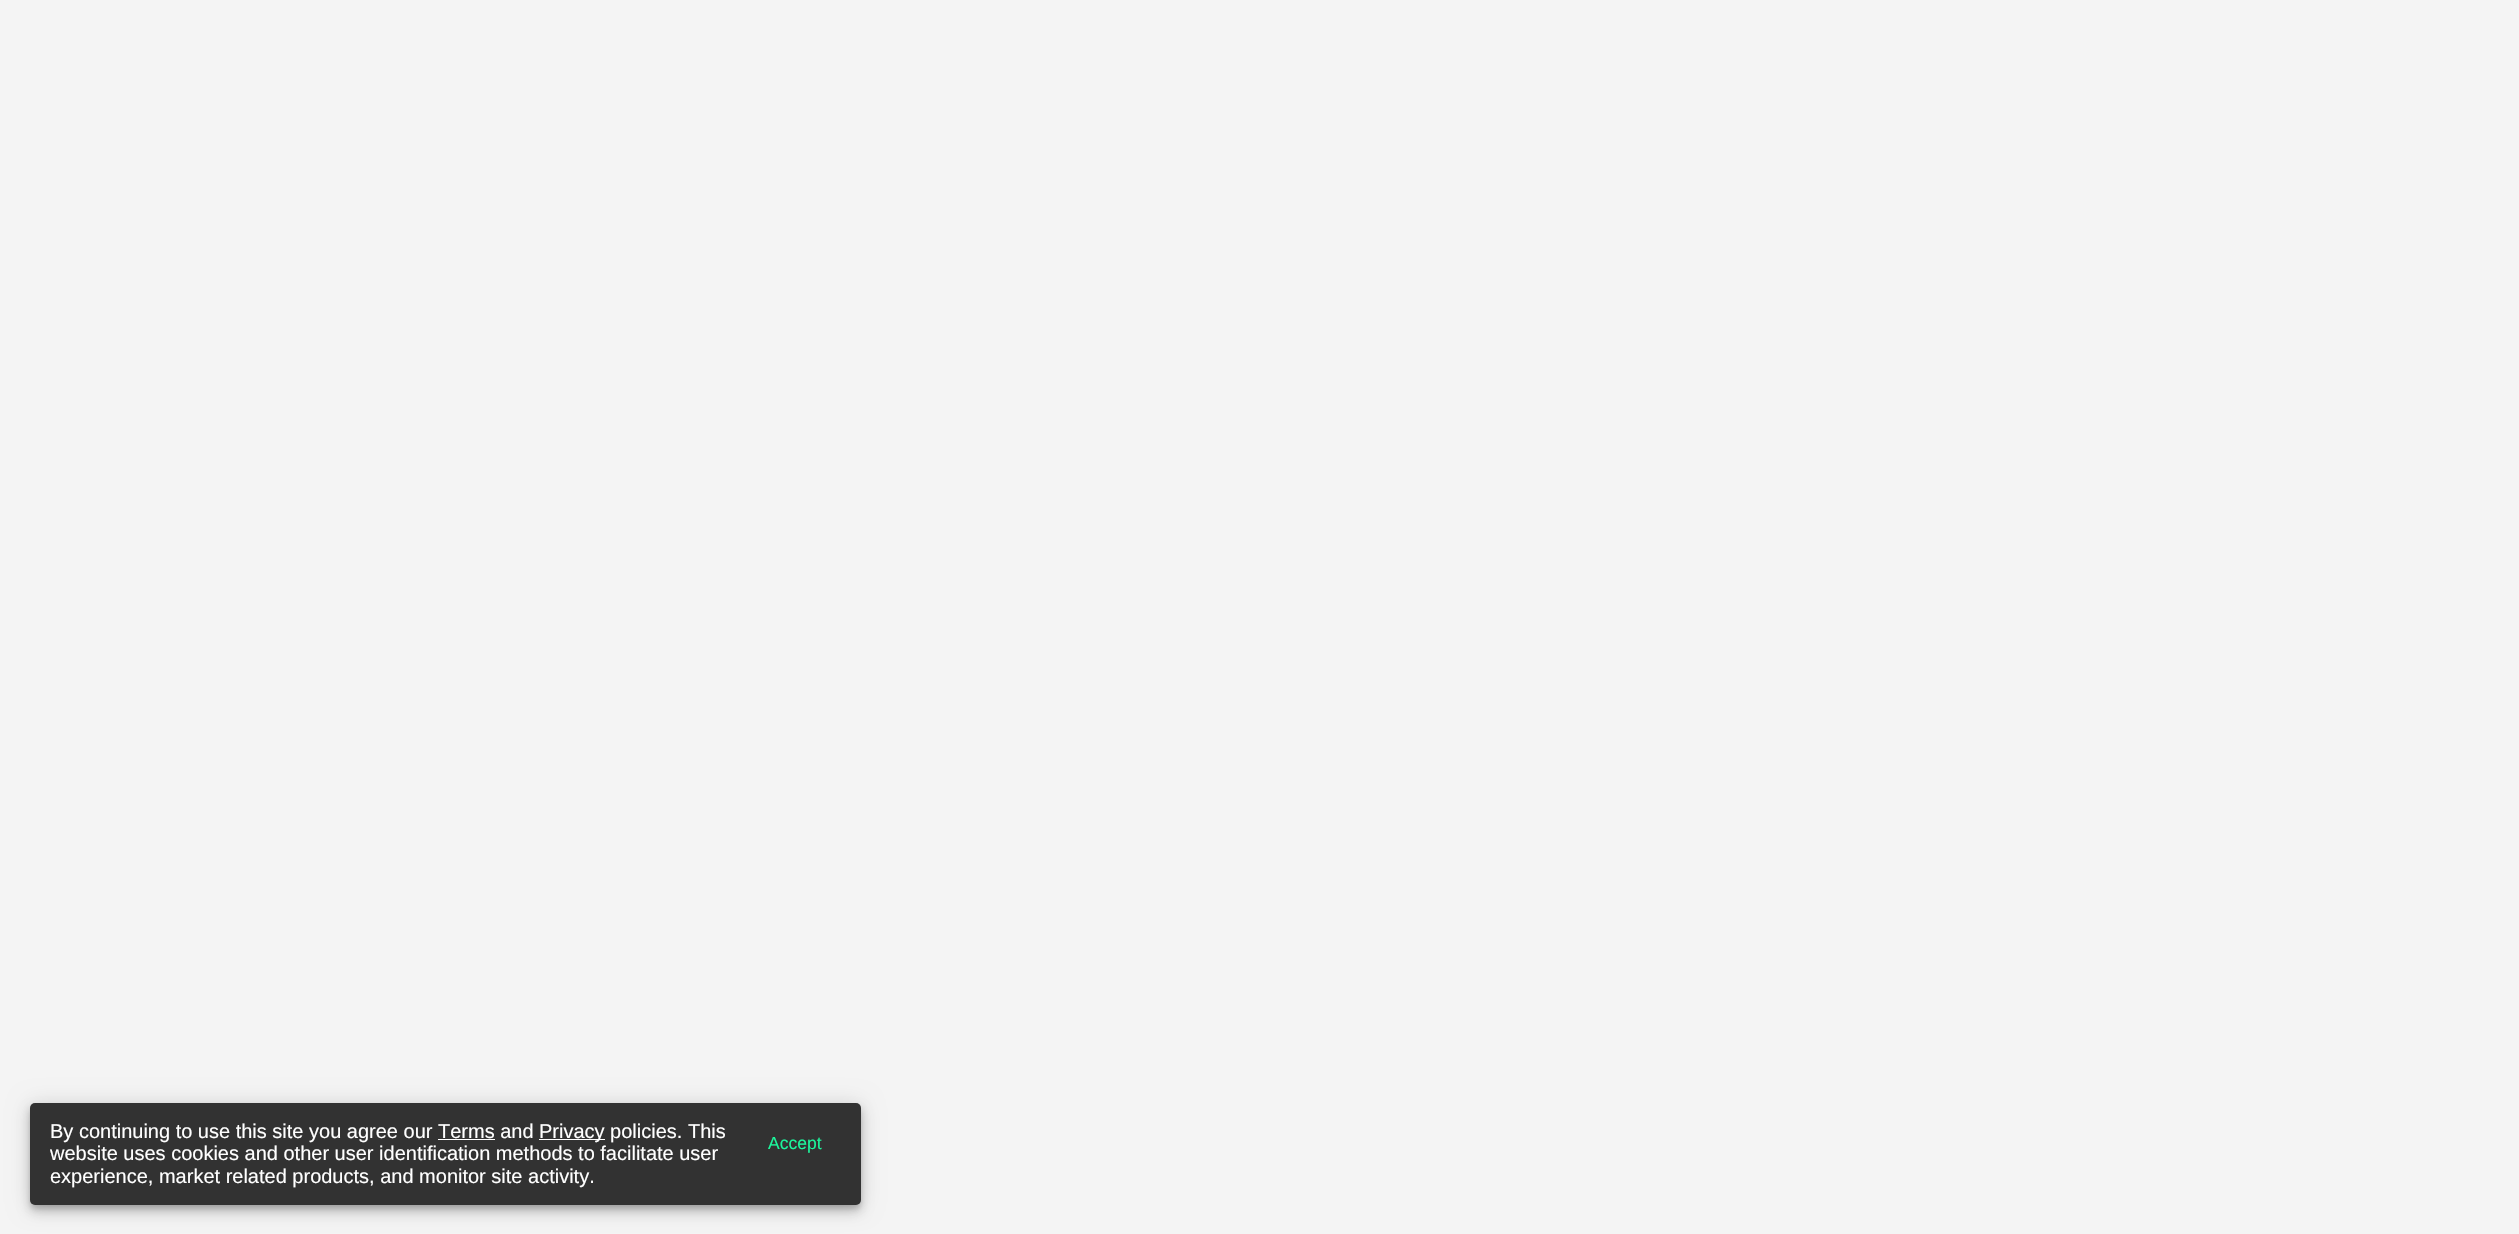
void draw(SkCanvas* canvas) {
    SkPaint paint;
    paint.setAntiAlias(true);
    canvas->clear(0xFFF4F4F4);
    paint.setColor(0x1F000000);
    paint.setMaskFilter(SkMaskFilter::MakeBlur(kNormal_SkBlurStyle, 11));
    canvas->drawRoundRect(SkRect::MakeXYWH(30, 1104, 831, 102), 5, 5, paint);
    paint.setMaskFilter(nullptr);
    paint.setColor(0x24000000);
    paint.setMaskFilter(SkMaskFilter::MakeBlur(kNormal_SkBlurStyle, 6));
    canvas->drawRoundRect(SkRect::MakeXYWH(30, 1110, 831, 103), 5, 5, paint);
    paint.setMaskFilter(nullptr);
    paint.setColor(0x33000000);
    paint.setMaskFilter(SkMaskFilter::MakeBlur(kNormal_SkBlurStyle, 3));
    canvas->drawRoundRect(SkRect::MakeXYWH(31, 1108, 829, 100), 4, 4, paint);
    paint.setMaskFilter(nullptr);
    paint.setColor(0xFF323232);
    canvas->drawRoundRect(SkRect::MakeXYWH(30, 1103, 831, 102), 5, 5, paint);
    SkFont font1(fontMgr->matchFamilyStyle("Liberation Sans", SkFontStyle::Normal()), 20);
    font1.setSubpixel(true);
    paint.setColor(0xFFFFFFFF);
    canvas->drawString("By continuing to use this site you agree our Terms and", 50, 1138, font1, paint);
    canvas->drawRect(SkRect::MakeXYWH(539, 1139, 66, 1), paint);
    canvas->drawString("Privacy policies. This", 539, 1138, font1, paint);
    canvas->drawRect(SkRect::MakeXYWH(438, 1139, 57, 1), paint);
    canvas->drawString("website uses cookies and other user identification methods to facilitate user", 50, 1160, font1, paint);
    canvas->drawString("experience, market related products, and monitor site activity.", 50, 1183, font1, paint);
    SkFont font2(fontMgr->matchFamilyStyle("Liberation Sans", SkFontStyle::Normal()), 17.5f);
    font2.setSubpixel(true);
    paint.setColor(0xFF1CF69C);
    canvas->drawString("Accept", 768, 1149, font2, paint);
}
